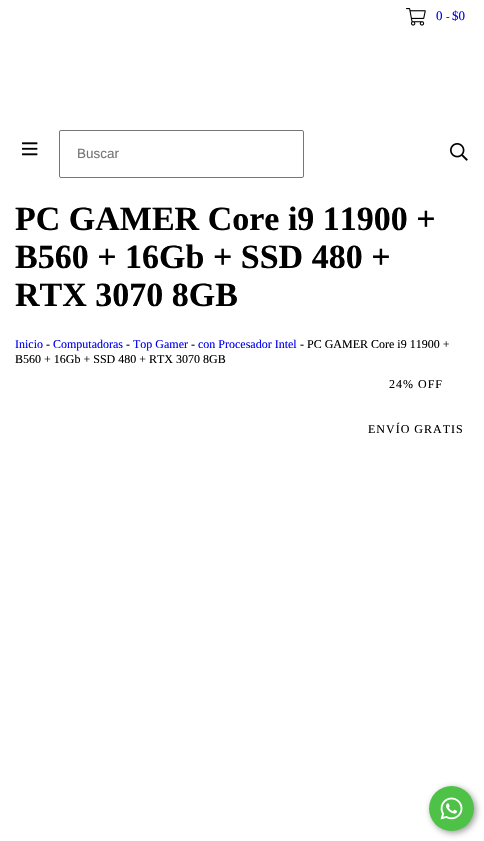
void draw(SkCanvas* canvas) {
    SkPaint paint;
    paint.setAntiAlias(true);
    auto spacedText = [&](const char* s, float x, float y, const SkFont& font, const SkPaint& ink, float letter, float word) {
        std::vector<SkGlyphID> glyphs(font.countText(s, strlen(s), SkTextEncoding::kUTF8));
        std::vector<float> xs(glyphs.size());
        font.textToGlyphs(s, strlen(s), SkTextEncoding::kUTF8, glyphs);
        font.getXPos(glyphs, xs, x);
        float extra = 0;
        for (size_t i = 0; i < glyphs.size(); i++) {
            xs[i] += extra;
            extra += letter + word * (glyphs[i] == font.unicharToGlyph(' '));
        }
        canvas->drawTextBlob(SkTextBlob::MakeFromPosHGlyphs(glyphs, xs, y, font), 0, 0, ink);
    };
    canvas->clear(0xFFFFFFFF);
    canvas->drawImageRect(SkImages::DeferredFromEncodedData(SkData::MakeFromFileName("img1.png")), SkRect::MakeXYWH(406, 8, 20, 18), SkSamplingOptions());
    SkFont font1(fontMgr->matchFamilyStyle("Liberation Serif", SkFontStyle::Normal()), 13);
    font1.setSubpixel(true);
    paint.setColor(0xFF0000EE);
    canvas->drawString("0", 436, 20, font1, paint);
    SkFont font2(fontMgr->matchFamilyStyle("Liberation Serif", SkFontStyle::Normal()), 11);
    font2.setSubpixel(true);
    canvas->drawString("-", 446, 20, font2, paint);
    canvas->drawString("$0", 452, 20, font1, paint);
    canvas->drawImageRect(SkImages::DeferredFromEncodedData(SkData::MakeFromFileName("img2.png")), SkRect::MakeXYWH(22, 142, 16, 14), SkSamplingOptions());
    paint.setStyle(SkPaint::kStroke_Style);
    paint.setStrokeWidth(1);
    paint.setColor(0xFF767676);
    canvas->drawRoundRect(SkRect::MakeXYWH(59.5f, 130.5f, 244, 47), 1.5f, 1.5f, paint);
    SkFont font3(fontMgr->matchFamilyStyle("Liberation Sans", SkFontStyle::Normal()), 13.5f);
    font3.setSubpixel(true);
    paint.setStyle(SkPaint::kFill_Style);
    paint.setColor(0xFF757575);
    canvas->drawString("Buscar", 77, 158, font3, paint);
    canvas->drawImageRect(SkImages::DeferredFromEncodedData(SkData::MakeFromFileName("img3.png")), SkRect::MakeXYWH(450, 143, 18, 18), SkSamplingOptions());
    SkFont font4(fontMgr->matchFamilyStyle("Liberation Serif", SkFontStyle::Bold()), 34);
    font4.setSubpixel(true);
    paint.setColor(0xFF000000);
    canvas->drawString("PC GAMER Core i9 11900 +", 15, 230, font4, paint);
    canvas->drawString("B560 + 16Gb + SSD 480 +", 15, 268, font4, paint);
    canvas->drawString("RTX 3070 8GB", 15, 306, font4, paint);
    SkFont font5(fontMgr->matchFamilyStyle("Liberation Serif", SkFontStyle::Normal()), 12);
    font5.setSubpixel(true);
    paint.setColor(0xFF0000EE);
    canvas->drawString("Inicio", 15, 348, font5, paint);
    paint.setColor(0xFF000000);
    canvas->drawString("-", 46, 348, font5, paint);
    paint.setColor(0xFF0000EE);
    canvas->drawString("Computadoras", 53, 348, font5, paint);
    paint.setColor(0xFF000000);
    canvas->drawString("-", 126, 348, font5, paint);
    paint.setColor(0xFF0000EE);
    canvas->drawString("Top Gamer", 133, 348, font5, paint);
    paint.setColor(0xFF000000);
    canvas->drawString("-", 191, 348, font5, paint);
    paint.setColor(0xFF0000EE);
    canvas->drawString("con Procesador Intel", 198, 348, font5, paint);
    paint.setColor(0xFF000000);
    canvas->drawString("- PC GAMER Core i9 11900 +", 300, 348, font5, paint);
    canvas->drawString("B560 + 16Gb + SSD 480 + RTX 3070 8GB", 15, 363, font5, paint);
    spacedText("24% OFF", 389, 388, font5, paint, 1, 0);
    spacedText("ENVÍO GRATIS", 368, 433, font5, paint, 1, 0);
    paint.setColor(0x66000000);
    paint.setMaskFilter(SkMaskFilter::MakeBlur(kNormal_SkBlurStyle, 3));
    canvas->drawRoundRect(SkRect::MakeXYWH(431, 788, 45, 45), 22.5f, 22.5f, paint);
    paint.setMaskFilter(nullptr);
    paint.setColor(0xFF4DC247);
    canvas->drawCircle(451.5f, 808.5f, 22.5f, paint);
    canvas->drawImageRect(SkImages::DeferredFromEncodedData(SkData::MakeFromFileName("img4.png")), SkRect::MakeXYWH(440, 797, 23, 23), SkSamplingOptions());
}
